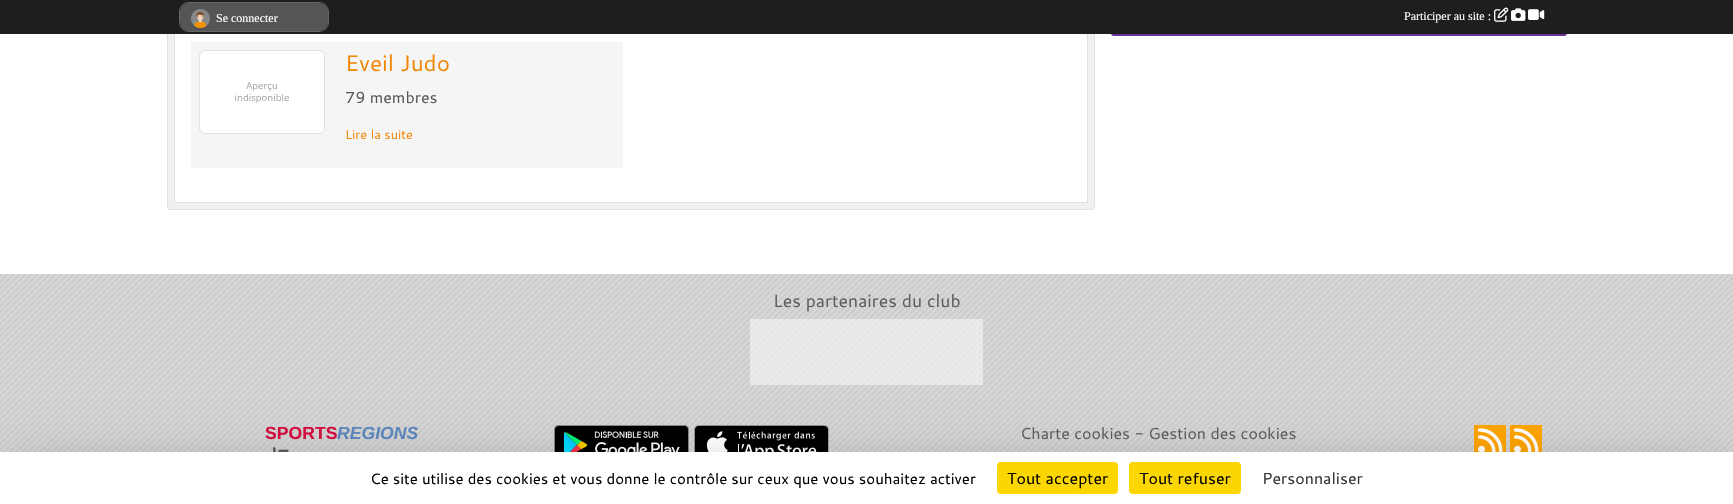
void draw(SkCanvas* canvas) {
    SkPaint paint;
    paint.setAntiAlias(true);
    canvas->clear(0xFFFFFFFF);
    paint.setColor(0xFF682F96);
    canvas->drawRoundRect(SkRect::MakeXYWH(1111, -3, 456, 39), 3, 3, paint);
    paint.setColor(0xFFF0F0F0);
    canvas->drawRoundRect(SkRect::MakeXYWH(167.5f, -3.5f, 927, 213), 2.5f, 2.5f, paint);
    paint.setStyle(SkPaint::kStroke_Style);
    paint.setStrokeWidth(1);
    paint.setColor(0xFFE1E1E1);
    canvas->drawRoundRect(SkRect::MakeXYWH(167.5f, -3.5f, 927, 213), 2.5f, 2.5f, paint);
    paint.setStyle(SkPaint::kFill_Style);
    paint.setColor(0xFFFFFFFF);
    canvas->drawRect(SkRect::MakeXYWH(175, 34, 912, 168), paint);
    paint.setStyle(SkPaint::kStroke_Style);
    paint.setColor(0xFFE1E1E1);
    canvas->drawRect(SkRect::MakeXYWH(174.5f, -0.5f, 913, 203), paint);
    paint.setStyle(SkPaint::kFill_Style);
    paint.setColor(0xFF1E1E1E);
    canvas->drawRect(SkRect::MakeXYWH(0, 0, 1733, 34), paint);
    paint.setStyle(SkPaint::kStroke_Style);
    paint.setColor(0xFF666666);
    canvas->drawRoundRect(SkRect::MakeXYWH(179.5f, 2.5f, 149, 29), 9.5f, 9.5f, paint);
    paint.setStyle(SkPaint::kFill_Style);
    paint.setColor(0xFF555555);
    canvas->drawRoundRect(SkRect::MakeXYWH(180, 3, 148, 28), 9, 9, paint);
    canvas->drawImageRect(SkImages::DeferredFromEncodedData(SkData::MakeFromFileName("img1.png")), SkRect::MakeXYWH(191, 9, 19, 19), SkSamplingOptions());
    SkFont font1(fontMgr->matchFamilyStyle("Liberation Serif", SkFontStyle::Normal()), 12);
    font1.setSubpixel(true);
    paint.setColor(0xFFFFFFFF);
    canvas->drawString("Se connecter", 216, 22, font1, paint);
    canvas->drawString("Participer au site :", 1404, 20, font1, paint);
    canvas->drawImageRect(SkImages::DeferredFromEncodedData(SkData::MakeFromFileName("img2.png")), SkRect::MakeXYWH(1494, 7, 15, 15), SkSamplingOptions());
    canvas->drawImageRect(SkImages::DeferredFromEncodedData(SkData::MakeFromFileName("img3.png")), SkRect::MakeXYWH(1511, 8, 15, 13), SkSamplingOptions());
    canvas->drawImageRect(SkImages::DeferredFromEncodedData(SkData::MakeFromFileName("img4.png")), SkRect::MakeXYWH(1528, 9, 17, 11), SkSamplingOptions());
    paint.setColor(0xFFF5F5F5);
    canvas->drawRect(SkRect::MakeXYWH(191, 42, 432, 126), paint);
    paint.setColor(0xFFFFFFFF);
    canvas->drawRoundRect(SkRect::MakeXYWH(199.5f, 50.5f, 125, 83), 5.5f, 5.5f, paint);
    paint.setStyle(SkPaint::kStroke_Style);
    paint.setColor(0xFFDEE2E6);
    canvas->drawRoundRect(SkRect::MakeXYWH(199.5f, 50.5f, 125, 83), 5.5f, 5.5f, paint);
    canvas->drawImageRect(SkImages::DeferredFromEncodedData(SkData::MakeFromFileName("img5.png")), SkRect::MakeXYWH(235, 82, 54, 21), SkSamplingOptions());
    SkFont font2(fontMgr->matchFamilyStyle("Cantarell", SkFontStyle::Normal()), 22.5f);
    font2.setSubpixel(true);
    paint.setStyle(SkPaint::kFill_Style);
    paint.setColor(0xFFF18809);
    canvas->drawString("Eveil Judo", 345, 71, font2, paint);
    SkFont font3(fontMgr->matchFamilyStyle("Cantarell", SkFontStyle::Normal()), 16);
    font3.setSubpixel(true);
    paint.setColor(0xFF56595C);
    canvas->drawString("79 membres", 345, 103, font3, paint);
    SkFont font4(fontMgr->matchFamilyStyle("Cantarell", SkFontStyle::Normal()), 12.75f);
    font4.setSubpixel(true);
    paint.setColor(0xFFF18809);
    canvas->drawString("Lire la suite", 345, 139, font4, paint);
    canvas->drawImageRect(SkImages::DeferredFromEncodedData(SkData::MakeFromFileName("img6.png")), SkRect::MakeXYWH(0, 274, 1733, 178), SkSamplingOptions());
    SkFont font5(fontMgr->matchFamilyStyle("Cantarell", SkFontStyle::Normal()), 17.6f);
    font5.setSubpixel(true);
    paint.setColor(0xFF5E5E5E);
    canvas->drawString("Les partenaires du club", 773, 307, font5, paint);
    paint.setColor(0x80FFFFFF);
    canvas->drawRect(SkRect::MakeXYWH(750, 319, 117, 66), paint);
    canvas->drawRect(SkRect::MakeXYWH(867, 319, 116, 66), paint);
    SkFont font6(fontMgr->matchFamilyStyle("Liberation Sans", SkFontStyle::Bold()), 17.6f);
    font6.setSubpixel(true);
    paint.setColor(0xFFD60C3E);
    canvas->drawString("SPORTS", 265, 439, font6, paint);
    SkFont font7(fontMgr->matchFamilyStyle("Liberation Sans", SkFontStyle::BoldItalic()), 17.6f);
    font7.setSubpixel(true);
    paint.setColor(0xFF5F88C0);
    canvas->drawString("REGIONS", 337, 439, font7, paint);
    canvas->drawImageRect(SkImages::DeferredFromEncodedData(SkData::MakeFromFileName("img7.png")), SkRect::MakeXYWH(273, 447, 16, 5), SkSamplingOptions());
    canvas->drawImageRect(SkImages::DeferredFromEncodedData(SkData::MakeFromFileName("img8.png")), SkRect::MakeXYWH(554, 425, 135, 27), SkSamplingOptions());
    canvas->drawImageRect(SkImages::DeferredFromEncodedData(SkData::MakeFromFileName("img9.png")), SkRect::MakeXYWH(694, 425, 135, 27), SkSamplingOptions());
    paint.setColor(0xFF5E5E5E);
    canvas->drawString("Charte cookies - Gestion des cookies", 1020, 439, font3, paint);
    paint.setColor(0xFFFFA500);
    canvas->drawRect(SkRect::MakeXYWH(1474, 425, 32, 27), paint);
    canvas->drawImageRect(SkImages::DeferredFromEncodedData(SkData::MakeFromFileName("img10.png")), SkRect::MakeXYWH(1478, 428, 25, 24), SkSamplingOptions());
    canvas->drawRect(SkRect::MakeXYWH(1510, 425, 32, 27), paint);
    canvas->drawImageRect(SkImages::DeferredFromEncodedData(SkData::MakeFromFileName("img10.png")), SkRect::MakeXYWH(1514, 428, 25, 24), SkSamplingOptions());
    paint.setColor(0x40000000);
    paint.setMaskFilter(SkMaskFilter::MakeBlur(kNormal_SkBlurStyle, 30));
    canvas->drawRect(SkRect::MakeXYWH(0, 472, 1733, 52), paint);
    paint.setMaskFilter(nullptr);
    paint.setColor(0xFFFFFFFF);
    canvas->drawRect(SkRect::MakeXYWH(0, 452, 1733, 52), paint);
    SkFont font8(fontMgr->matchFamilyStyle("Cantarell", SkFontStyle::Normal()), 15);
    font8.setSubpixel(true);
    paint.setColor(0xFF000000);
    canvas->drawString("Ce site utilise des cookies et vous donne le contrôle sur ceux que vous souhaitez activer", 370, 484, font8, paint);
    paint.setColor(0xFFFBD600);
    canvas->drawRoundRect(SkRect::MakeXYWH(997, 462, 121, 32), 4, 4, paint);
    paint.setColor(0xFF000000);
    canvas->drawString("Tout accepter", 1007, 484, font3, paint);
    paint.setColor(0xFFFBD600);
    canvas->drawRoundRect(SkRect::MakeXYWH(1129, 462, 112, 32), 4, 4, paint);
    paint.setColor(0xFF000000);
    canvas->drawString("Tout refuser", 1139, 484, font3, paint);
    paint.setColor(0xFF333333);
    canvas->drawString("Personnaliser", 1262, 484, font3, paint);
}
